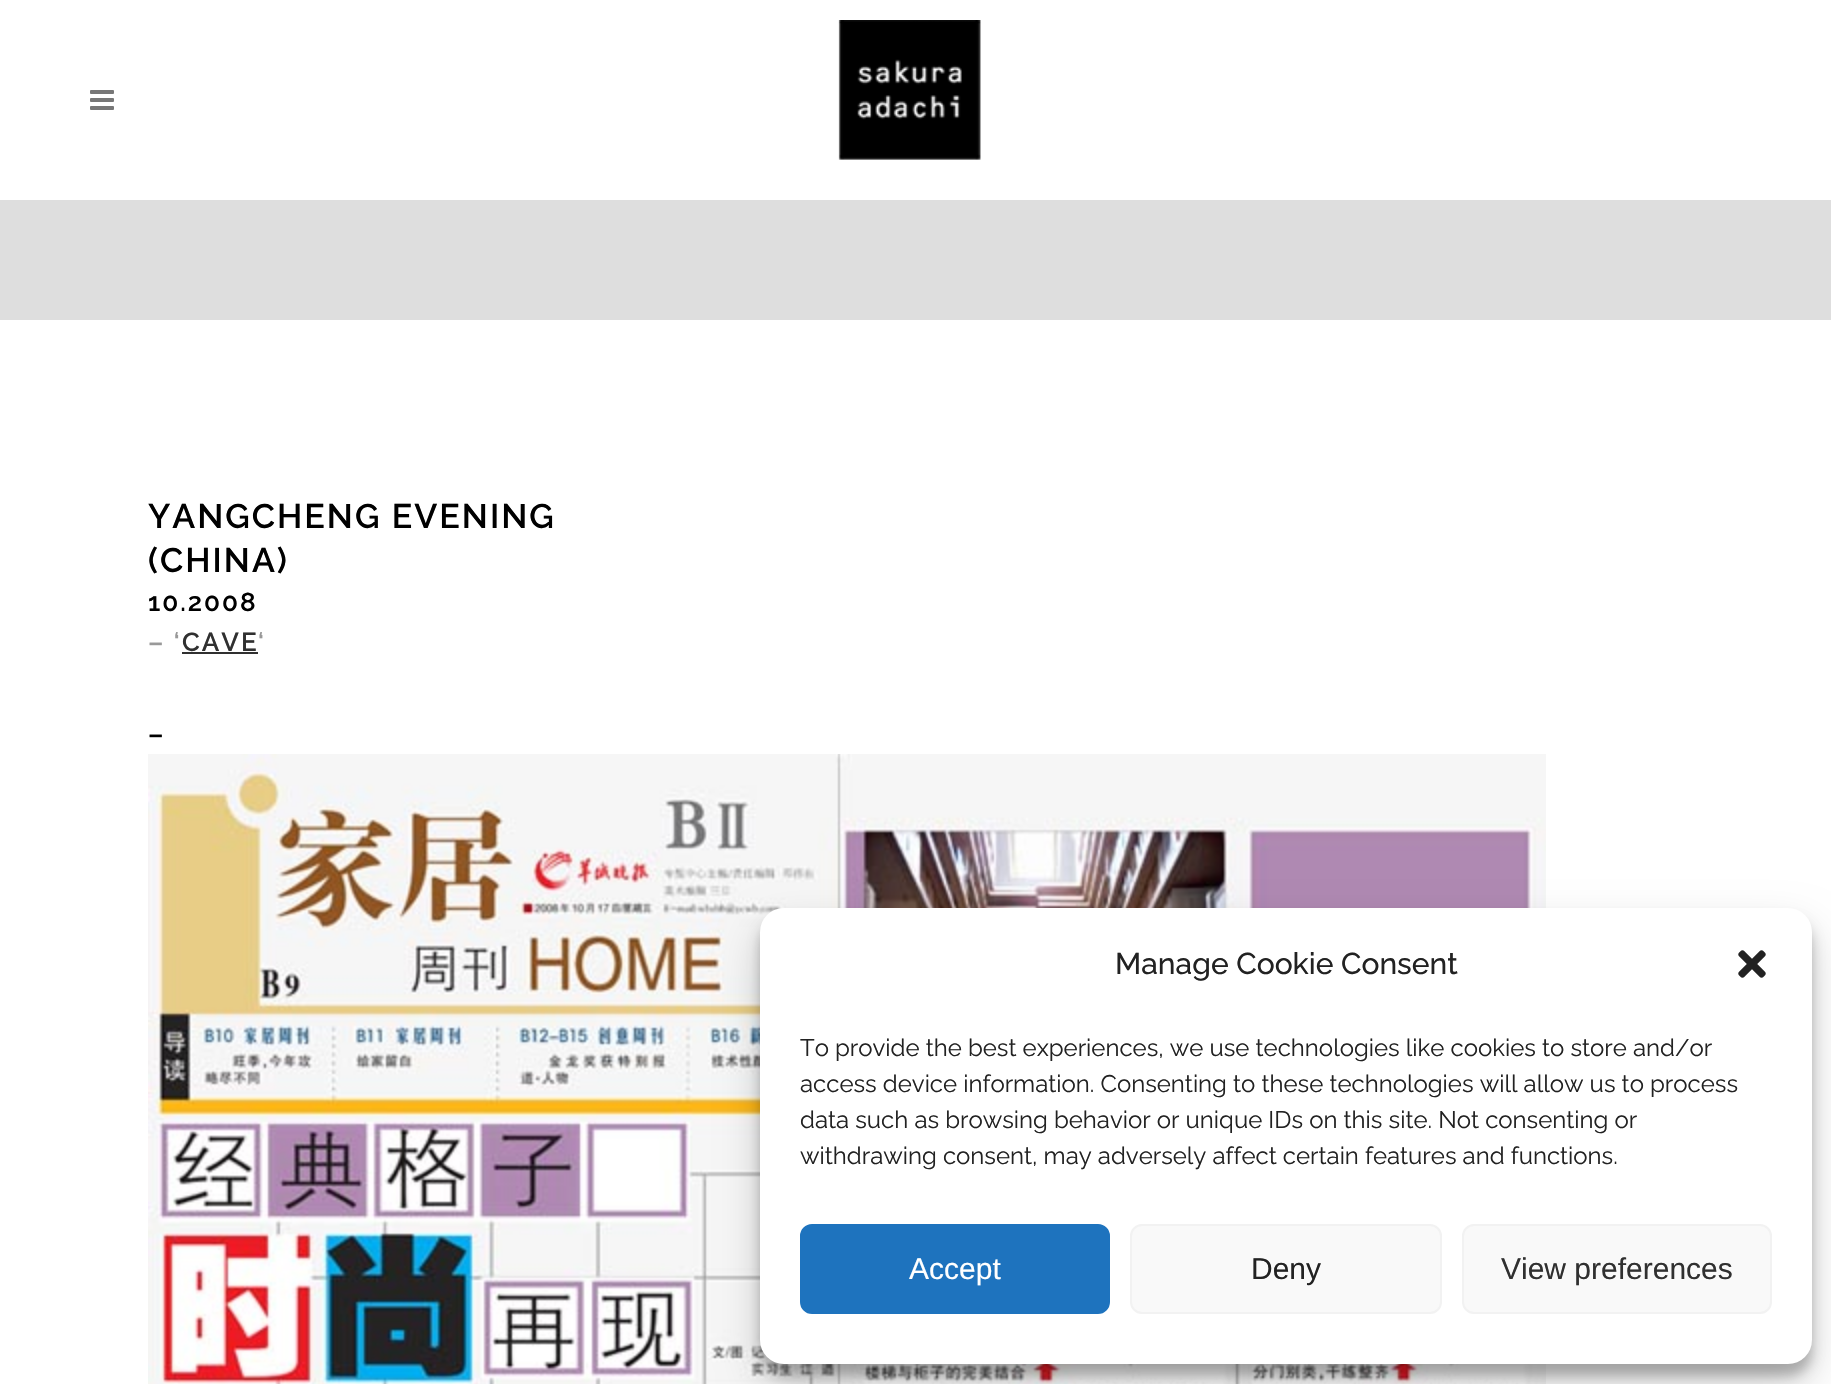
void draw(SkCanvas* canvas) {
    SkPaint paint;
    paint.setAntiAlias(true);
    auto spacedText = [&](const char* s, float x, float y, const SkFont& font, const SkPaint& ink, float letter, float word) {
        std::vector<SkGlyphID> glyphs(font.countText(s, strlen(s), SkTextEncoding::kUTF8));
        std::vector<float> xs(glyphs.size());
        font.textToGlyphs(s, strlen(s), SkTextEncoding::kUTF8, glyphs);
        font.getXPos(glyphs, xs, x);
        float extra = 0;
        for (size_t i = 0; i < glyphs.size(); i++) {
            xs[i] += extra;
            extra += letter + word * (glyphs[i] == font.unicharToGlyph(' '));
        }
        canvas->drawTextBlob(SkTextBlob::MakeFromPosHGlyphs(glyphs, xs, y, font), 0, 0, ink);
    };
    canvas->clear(0xFFDEDEDE);
    paint.setColor(0xFFFFFFFF);
    canvas->drawRect(SkRect::MakeXYWH(0, 0, 1831, 200), paint);
    canvas->drawImageRect(SkImages::DeferredFromEncodedData(SkData::MakeFromFileName("img1.png")), SkRect::MakeXYWH(90, 90, 24, 20), SkSamplingOptions());
    canvas->drawImageRect(SkImages::DeferredFromEncodedData(SkData::MakeFromFileName("img2.png")), SkRect::MakeXYWH(838, 20, 143, 140), SkSamplingOptions());
    canvas->drawRect(SkRect::MakeXYWH(0, 320, 1831, 1064), paint);
    SkFont font1(fontMgr->matchFamilyStyle("Raleway", SkFontStyle(600, SkFontStyle::kNormal_Width, SkFontStyle::kUpright_Slant)), 34);
    font1.setSubpixel(true);
    paint.setColor(0xFF000000);
    spacedText("YANGCHENG EVENING", 148, 528, font1, paint, 2, 0);
    spacedText("(CHINA)", 148, 572, font1, paint, 2, 0);
    SkFont font2(fontMgr->matchFamilyStyle("Raleway", SkFontStyle(600, SkFontStyle::kNormal_Width, SkFontStyle::kUpright_Slant)), 26);
    font2.setSubpixel(true);
    spacedText("10.2008", 148, 611, font2, paint, 2, 0);
    paint.setColor(0xFF999999);
    spacedText("– ‘", 148, 651, font2, paint, 2, 0);
    paint.setColor(0xFF303030);
    spacedText("CAVE", 182, 651, font2, paint, 2, 0);
    canvas->drawRect(SkRect::MakeXYWH(182, 652, 76, 2), paint);
    paint.setColor(0xFF999999);
    spacedText("‘", 258, 651, font2, paint, 2, 0);
    paint.setColor(0xFF000000);
    spacedText("–", 148, 743, font2, paint, 2, 0);
    canvas->drawImageRect(SkImages::DeferredFromEncodedData(SkData::MakeFromFileName("img3.png")), SkRect::MakeXYWH(148, 754, 1398, 630), SkSamplingOptions());
    paint.setColor(0x3B000000);
    paint.setMaskFilter(SkMaskFilter::MakeBlur(kNormal_SkBlurStyle, 6));
    canvas->drawRoundRect(SkRect::MakeXYWH(760, 920, 1052, 456), 24, 24, paint);
    paint.setMaskFilter(nullptr);
    paint.setColor(0x30000000);
    paint.setMaskFilter(SkMaskFilter::MakeBlur(kNormal_SkBlurStyle, 20));
    canvas->drawRoundRect(SkRect::MakeXYWH(760, 928, 1052, 456), 24, 24, paint);
    paint.setMaskFilter(nullptr);
    paint.setColor(0xFFFFFFFF);
    canvas->drawRoundRect(SkRect::MakeXYWH(760, 908, 1052, 456), 24, 24, paint);
    SkFont font3(fontMgr->matchFamilyStyle("Raleway", SkFontStyle(500, SkFontStyle::kNormal_Width, SkFontStyle::kUpright_Slant)), 30);
    font3.setSubpixel(true);
    paint.setColor(0xFF222222);
    canvas->drawString("Manage Cookie Consent", 1115, 974, font3, paint);
    canvas->drawImageRect(SkImages::DeferredFromEncodedData(SkData::MakeFromFileName("img4.png")), SkRect::MakeXYWH(1738, 950, 28, 28), SkSamplingOptions());
    SkFont font4(fontMgr->matchFamilyStyle("Raleway", SkFontStyle::Normal()), 24);
    font4.setSubpixel(true);
    canvas->drawString("To provide the best experiences, we use technologies like cookies to store and/or", 800, 1056, font4, paint);
    canvas->drawString("access device information. Consenting to these technologies will allow us to process", 800, 1092, font4, paint);
    canvas->drawString("data such as browsing behavior or unique IDs on this site. Not consenting or", 800, 1128, font4, paint);
    canvas->drawString("withdrawing consent, may adversely affect certain features and functions.", 800, 1164, font4, paint);
    paint.setColor(0xFF1E73BE);
    canvas->drawRoundRect(SkRect::MakeXYWH(801, 1225, 308, 88), 11, 11, paint);
    paint.setStyle(SkPaint::kStroke_Style);
    paint.setStrokeWidth(2);
    canvas->drawRoundRect(SkRect::MakeXYWH(801, 1225, 308, 88), 11, 11, paint);
    SkFont font5(fontMgr->matchFamilyStyle("Liberation Sans", SkFontStyle::Normal()), 30);
    font5.setSubpixel(true);
    paint.setStyle(SkPaint::kFill_Style);
    paint.setColor(0xFFFFFFFF);
    canvas->drawString("Accept", 909, 1279, font5, paint);
    paint.setColor(0xFFF9F9F9);
    canvas->drawRoundRect(SkRect::MakeXYWH(1131, 1225, 310, 88), 11, 11, paint);
    paint.setStyle(SkPaint::kStroke_Style);
    paint.setColor(0xFFF2F2F2);
    canvas->drawRoundRect(SkRect::MakeXYWH(1131, 1225, 310, 88), 11, 11, paint);
    paint.setStyle(SkPaint::kFill_Style);
    paint.setColor(0xFF222222);
    canvas->drawString("Deny", 1251, 1279, font5, paint);
    paint.setColor(0xFFF9F9F9);
    canvas->drawRoundRect(SkRect::MakeXYWH(1463, 1225, 308, 88), 11, 11, paint);
    paint.setStyle(SkPaint::kStroke_Style);
    paint.setColor(0xFFF2F2F2);
    canvas->drawRoundRect(SkRect::MakeXYWH(1463, 1225, 308, 88), 11, 11, paint);
    paint.setStyle(SkPaint::kFill_Style);
    paint.setColor(0xFF303030);
    canvas->drawString("View preferences", 1501, 1279, font5, paint);
}
